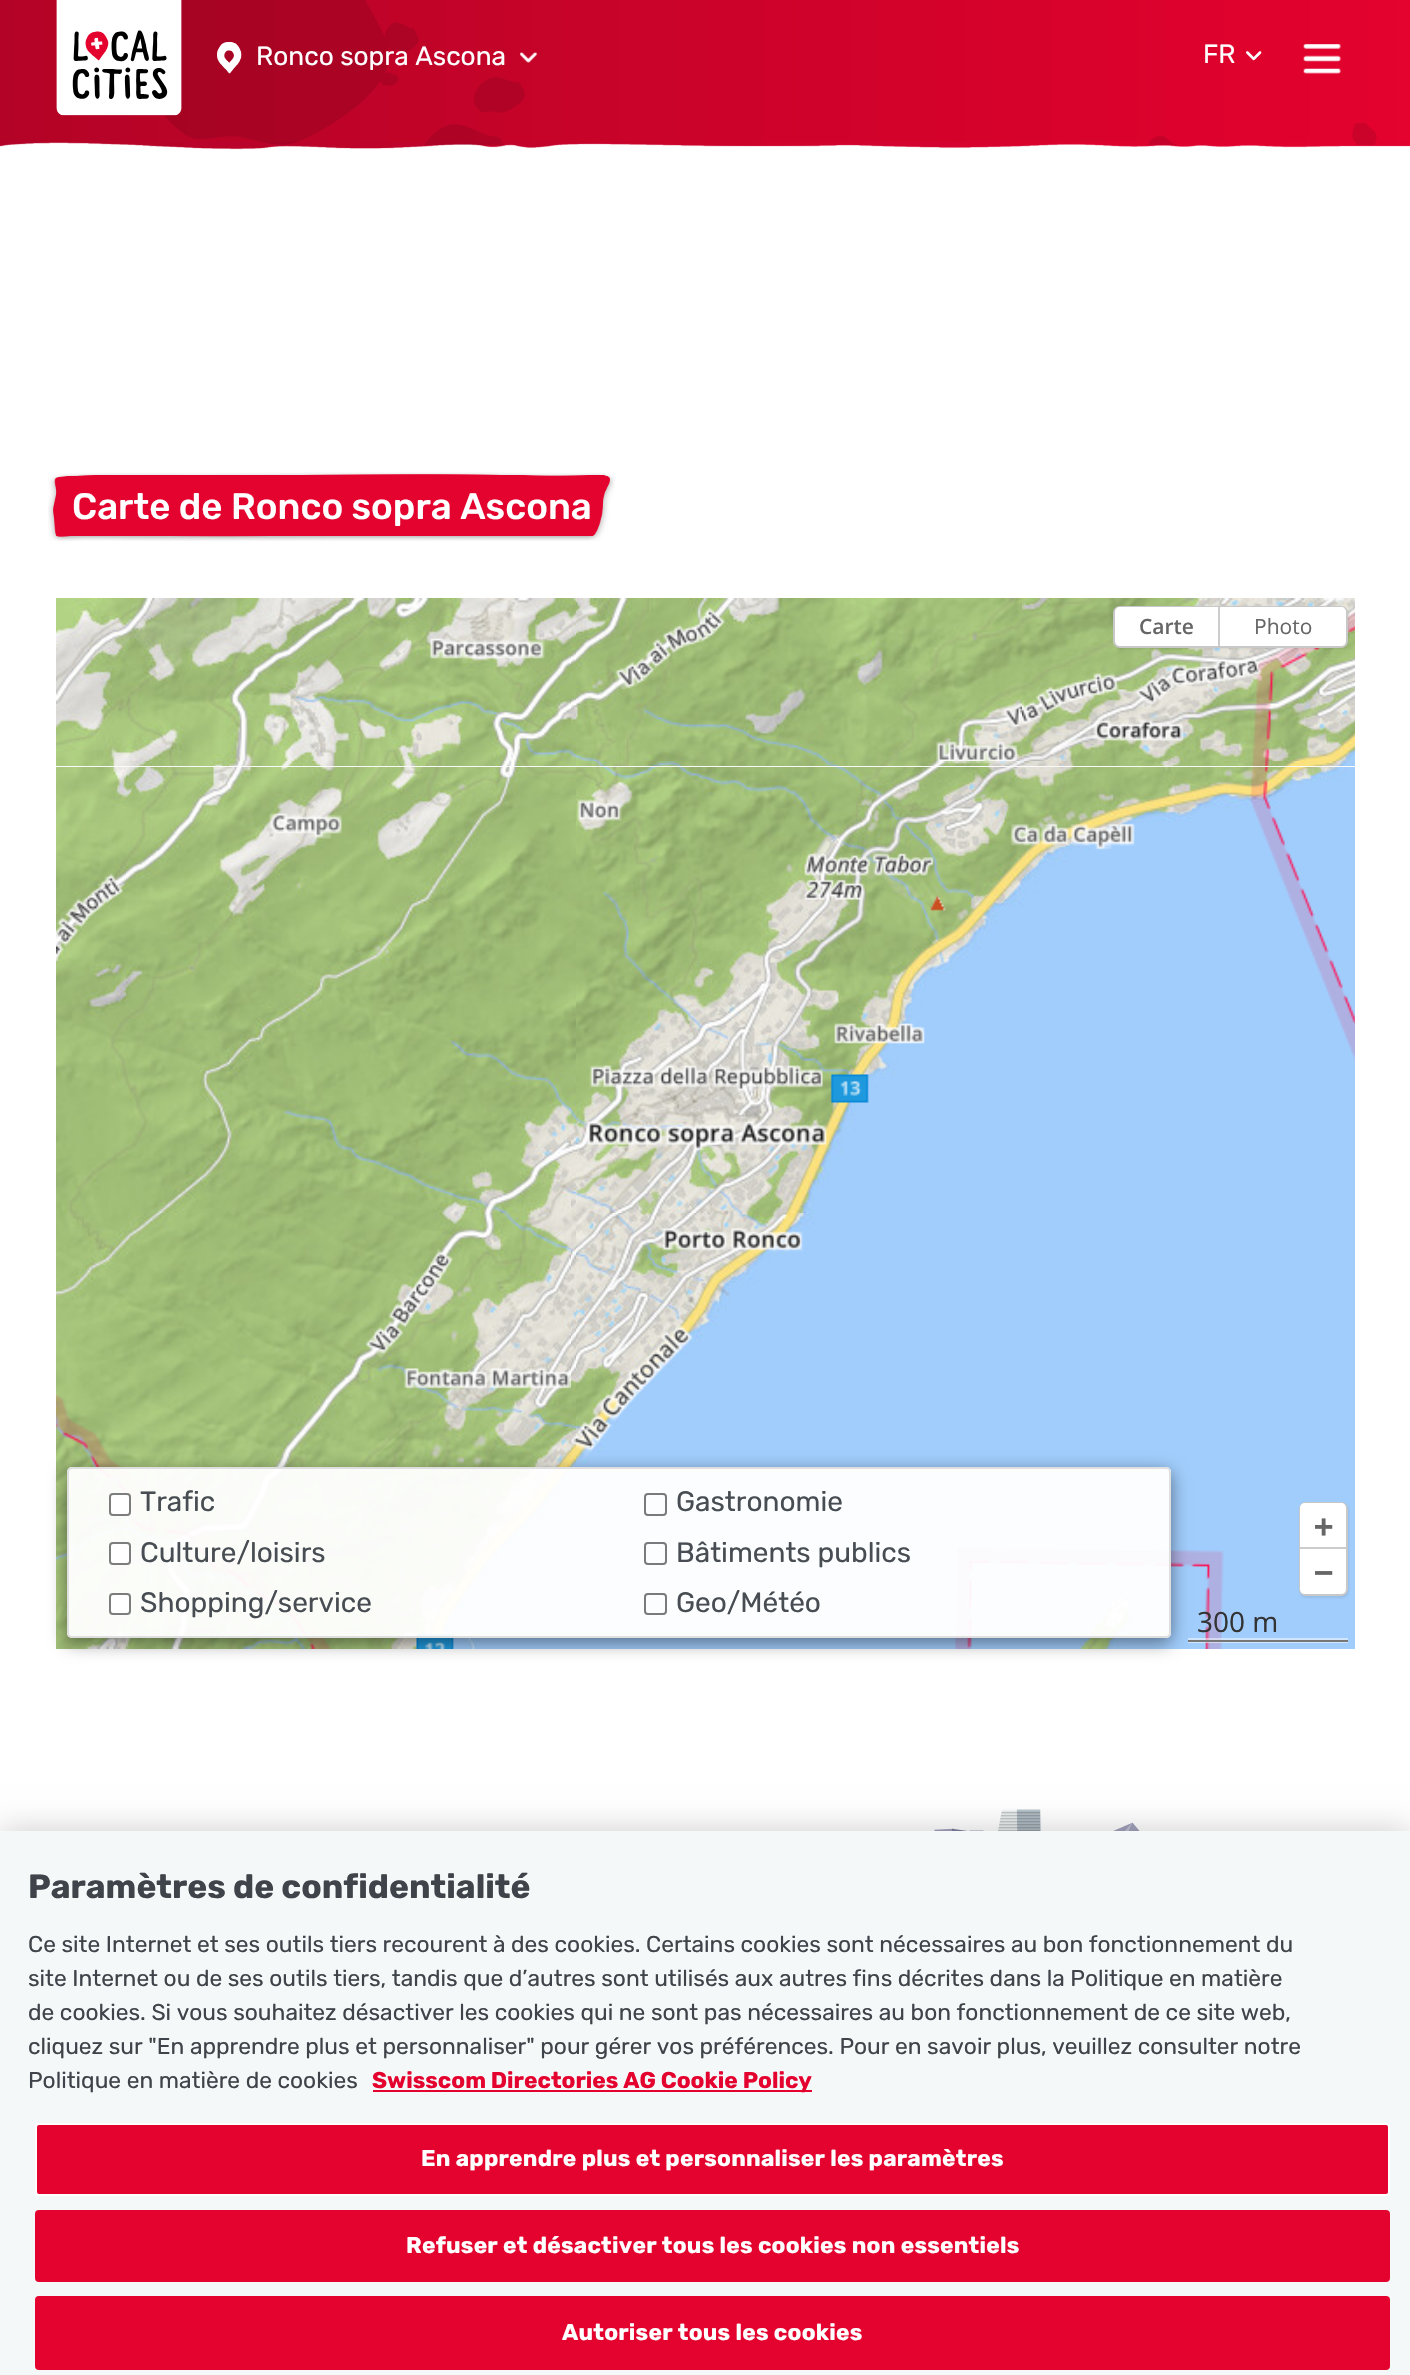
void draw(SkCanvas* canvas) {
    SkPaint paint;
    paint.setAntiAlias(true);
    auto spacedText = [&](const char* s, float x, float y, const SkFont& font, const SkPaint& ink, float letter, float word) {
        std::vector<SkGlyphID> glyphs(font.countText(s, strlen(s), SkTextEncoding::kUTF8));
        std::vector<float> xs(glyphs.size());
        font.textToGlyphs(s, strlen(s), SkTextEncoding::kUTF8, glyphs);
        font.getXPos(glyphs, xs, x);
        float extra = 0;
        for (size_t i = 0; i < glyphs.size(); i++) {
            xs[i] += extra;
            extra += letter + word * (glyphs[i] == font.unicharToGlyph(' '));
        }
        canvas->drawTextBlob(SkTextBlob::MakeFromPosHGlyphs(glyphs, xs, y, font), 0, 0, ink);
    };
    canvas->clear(0xFFFFFFFF);
    {
        const SkColor colors[] = {0xFFB30326, 0xFFE4022E};
        const float stops[] = {0, 1};
        const SkPoint ends[] = {{0, 71}, {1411, 71}};
        paint.setShader(SkGradientShader::MakeLinear(ends, colors, stops, 2, SkTileMode::kClamp));
        paint.setAlpha(255);
    }
    canvas->drawRect(SkRect::MakeXYWH(0, 0, 1410, 142), paint);
    canvas->drawImageRect(SkImages::DeferredFromEncodedData(SkData::MakeFromFileName("img8.png")), SkRect::MakeXYWH(0, 142, 1410, 8), SkSamplingOptions());
    canvas->drawImageRect(SkImages::DeferredFromEncodedData(SkData::MakeFromFileName("img1.png")), SkRect::MakeXYWH(164, 0, 361, 145), SkSamplingOptions());
    canvas->drawImageRect(SkImages::DeferredFromEncodedData(SkData::MakeFromFileName("img2.png")), SkRect::MakeXYWH(56, 0, 126, 116), SkSamplingOptions());
    canvas->drawImageRect(SkImages::DeferredFromEncodedData(SkData::MakeFromFileName("img3.png")), SkRect::MakeXYWH(217, 42, 25, 32), SkSamplingOptions());
    SkFont font1(fontMgr->matchFamilyStyle("Rubik", SkFontStyle::Normal()), 26.25f);
    font1.setSubpixel(true);
    paint.setShader(nullptr);
    paint.setColor(0xFFFFFFFF);
    canvas->drawString("Ronco sopra Ascona", 256, 65, font1, paint);
    canvas->drawImageRect(SkImages::DeferredFromEncodedData(SkData::MakeFromFileName("img4.png")), SkRect::MakeXYWH(520, 52, 17, 11), SkSamplingOptions());
    canvas->drawString("FR", 1203, 63, font1, paint);
    canvas->drawImageRect(SkImages::DeferredFromEncodedData(SkData::MakeFromFileName("img5.png")), SkRect::MakeXYWH(1246, 51, 16, 10), SkSamplingOptions());
    canvas->drawImageRect(SkImages::DeferredFromEncodedData(SkData::MakeFromFileName("img6.png")), SkRect::MakeXYWH(1303, 44, 38, 30), SkSamplingOptions());
    canvas->drawImageRect(SkImages::DeferredFromEncodedData(SkData::MakeFromFileName("img7.png")), SkRect::MakeXYWH(1148, 123, 229, 22), SkSamplingOptions());
    canvas->drawImageRect(SkImages::DeferredFromEncodedData(SkData::MakeFromFileName("img9.png")), SkRect::MakeXYWH(48, 472, 567, 69), SkSamplingOptions());
    SkFont font2(fontMgr->matchFamilyStyle("Rubik", SkFontStyle(500, SkFontStyle::kNormal_Width, SkFontStyle::kUpright_Slant)), 36.75f);
    font2.setSubpixel(true);
    canvas->drawString("Carte de Ronco sopra Ascona", 72, 519, font2, paint);
    canvas->drawImageRect(SkImages::DeferredFromEncodedData(SkData::MakeFromFileName("img12.png")), SkRect::MakeXYWH(56, 767, 520, 882), SkSamplingOptions());
    canvas->drawImageRect(SkImages::DeferredFromEncodedData(SkData::MakeFromFileName("img13.png")), SkRect::MakeXYWH(576, 767, 779, 882), SkSamplingOptions());
    canvas->drawImageRect(SkImages::DeferredFromEncodedData(SkData::MakeFromFileName("img16.png")), SkRect::MakeXYWH(56, 813, 520, 836), SkSamplingOptions());
    canvas->drawImageRect(SkImages::DeferredFromEncodedData(SkData::MakeFromFileName("img17.png")), SkRect::MakeXYWH(576, 767, 779, 882), SkSamplingOptions());
    paint.setColor(0x80FFFFFF);
    canvas->drawPath(SkPathBuilder().moveTo(1188, 1605).lineTo(1188, 1643).lineTo(1348, 1643).lineTo(1348, 1605).lineTo(1348, 1642).lineTo(1188, 1642).close().detach(), paint);
    canvas->drawRect(SkRect::MakeXYWH(1188, 1638, 160, 2), paint);
    paint.setColor(0xFF777777);
    canvas->drawRect(SkRect::MakeXYWH(1188, 1640, 160, 2), paint);
    canvas->save();
    canvas->clipPath(SkPathBuilder(SkPathFillType::kEvenOdd).moveTo(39, 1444).lineTo(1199, 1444).lineTo(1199, 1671).lineTo(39, 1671).close().moveTo(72, 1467).lineTo(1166, 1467).cubicTo(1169, 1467, 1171, 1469, 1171, 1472).lineTo(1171, 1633).cubicTo(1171, 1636, 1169, 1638, 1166, 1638).lineTo(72, 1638).cubicTo(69, 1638, 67, 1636, 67, 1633).lineTo(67, 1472).cubicTo(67, 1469, 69, 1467, 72, 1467).close().detach(), true);
    paint.setColor(0x78000000);
    paint.setMaskFilter(SkMaskFilter::MakeBlur(kNormal_SkBlurStyle, 9));
    canvas->drawRoundRect(SkRect::MakeXYWH(67, 1472, 1104, 171), 5, 5, paint);
    paint.setMaskFilter(nullptr);
    canvas->restore();
    paint.setColor(0xF2FFFFFF);
    canvas->drawRoundRect(SkRect::MakeXYWH(67, 1467, 1104, 171), 5, 5, paint);
    paint.setStyle(SkPaint::kStroke_Style);
    paint.setStrokeWidth(2);
    paint.setColor(0xF2DDDDDD);
    canvas->drawRoundRect(SkRect::MakeXYWH(68, 1468, 1102, 169), 4, 4, paint);
    paint.setStyle(SkPaint::kFill_Style);
    paint.setColor(0xF2FFFFFF);
    canvas->drawRoundRect(SkRect::MakeXYWH(110, 1494, 20, 21), 3, 3, paint);
    paint.setStyle(SkPaint::kStroke_Style);
    paint.setColor(0xFF7D7D7D);
    canvas->drawRoundRect(SkRect::MakeXYWH(110, 1494, 20, 21), 3, 3, paint);
    SkFont font3(fontMgr->matchFamilyStyle("Rubik", SkFontStyle::Normal()), 28);
    font3.setSubpixel(true);
    paint.setStyle(SkPaint::kFill_Style);
    paint.setColor(0xFF474D52);
    canvas->drawString("Trafic", 140, 1511, font3, paint);
    paint.setStyle(SkPaint::kStroke_Style);
    paint.setColor(0xFF787A7D);
    canvas->drawRoundRect(SkRect::MakeXYWH(645, 1494, 21, 21), 3, 3, paint);
    paint.setStyle(SkPaint::kFill_Style);
    paint.setColor(0xFF474D52);
    canvas->drawString("Gastronomie", 676, 1511, font3, paint);
    paint.setColor(0xFFFFFFFF);
    canvas->drawRoundRect(SkRect::MakeXYWH(110, 1543, 20, 21), 3, 3, paint);
    paint.setStyle(SkPaint::kStroke_Style);
    paint.setColor(0xFF7D7D7D);
    canvas->drawRoundRect(SkRect::MakeXYWH(110, 1543, 20, 21), 3, 3, paint);
    paint.setStyle(SkPaint::kFill_Style);
    paint.setColor(0xFF474D52);
    canvas->drawString("Culture/loisirs", 140, 1562, font3, paint);
    paint.setStyle(SkPaint::kStroke_Style);
    paint.setColor(0xFF787A7D);
    canvas->drawRoundRect(SkRect::MakeXYWH(645, 1543, 21, 21), 3, 3, paint);
    paint.setStyle(SkPaint::kFill_Style);
    paint.setColor(0xFF474D52);
    canvas->drawString("Bâtiments publics", 676, 1562, font3, paint);
    paint.setColor(0xFFFFFFFF);
    canvas->drawRoundRect(SkRect::MakeXYWH(110, 1594, 20, 20), 3, 3, paint);
    paint.setStyle(SkPaint::kStroke_Style);
    paint.setColor(0xFF7D7D7D);
    canvas->drawRoundRect(SkRect::MakeXYWH(110, 1594, 20, 20), 3, 3, paint);
    paint.setStyle(SkPaint::kFill_Style);
    paint.setColor(0xFF474D52);
    canvas->drawString("Shopping/service", 140, 1612, font3, paint);
    paint.setStyle(SkPaint::kStroke_Style);
    paint.setColor(0xFF787A7D);
    canvas->drawRoundRect(SkRect::MakeXYWH(645, 1594, 21, 20), 3, 3, paint);
    paint.setStyle(SkPaint::kFill_Style);
    paint.setColor(0xFF474D52);
    canvas->drawString("Geo/Météo", 676, 1612, font3, paint);
    paint.setColor(0xFFFAFAFA);
    canvas->drawRect(SkRect::MakeXYWH(56, 766, 1299, 1), paint);
    canvas->drawImageRect(SkImages::DeferredFromEncodedData(SkData::MakeFromFileName("img10.png")), SkRect::MakeXYWH(56, 598, 520, 168), SkSamplingOptions());
    canvas->drawImageRect(SkImages::DeferredFromEncodedData(SkData::MakeFromFileName("img11.png")), SkRect::MakeXYWH(576, 598, 779, 168), SkSamplingOptions());
    canvas->drawImageRect(SkImages::DeferredFromEncodedData(SkData::MakeFromFileName("img14.png")), SkRect::MakeXYWH(430, 638, 115, 21), SkSamplingOptions());
    canvas->drawImageRect(SkImages::DeferredFromEncodedData(SkData::MakeFromFileName("img15.png")), SkRect::MakeXYWH(615, 598, 740, 168), SkSamplingOptions());
    paint.setColor(0x14000000);
    paint.setMaskFilter(SkMaskFilter::MakeBlur(kNormal_SkBlurStyle, 1));
    canvas->drawRoundRect(SkRect::MakeXYWH(1115, 607, 234, 42), 7, 7, paint);
    paint.setMaskFilter(nullptr);
    paint.setStyle(SkPaint::kStroke_Style);
    paint.setColor(0xFFC8C8C8);
    canvas->drawRoundRect(SkRect::MakeXYWH(1114, 607, 233, 40), 6, 6, paint);
    paint.setStyle(SkPaint::kFill_Style);
    paint.setColor(0xFFFFFFFF);
    canvas->drawPath(SkPathBuilder().moveTo(1120, 607).lineTo(1220, 607).lineTo(1220, 646).lineTo(1120, 646).cubicTo(1117, 646, 1115, 644, 1115, 641).lineTo(1115, 612).cubicTo(1115, 609, 1117, 607, 1120, 607).close().detach(), paint);
    paint.setColor(0xFFCCCCCC);
    canvas->drawRect(SkRect::MakeXYWH(1218, 607, 2, 39), paint);
    SkFont font4(fontMgr->matchFamilyStyle("Open Sans", SkFontStyle(600, SkFontStyle::kNormal_Width, SkFontStyle::kUpright_Slant)), 21);
    font4.setSubpixel(true);
    paint.setColor(0xFF666666);
    canvas->drawString("Carte", 1139, 634, font4, paint);
    paint.setColor(0xFFFFFFFF);
    canvas->drawPath(SkPathBuilder().moveTo(1220, 607).lineTo(1341, 607).cubicTo(1344, 607, 1346, 609, 1346, 612).lineTo(1346, 641).cubicTo(1346, 644, 1344, 646, 1341, 646).lineTo(1220, 646).close().detach(), paint);
    SkFont font5(fontMgr->matchFamilyStyle("Open Sans", SkFontStyle::Normal()), 21);
    font5.setSubpixel(true);
    paint.setColor(0xFF666666);
    canvas->drawString("Photo", 1254, 634, font5, paint);
    paint.setColor(0x14000000);
    paint.setMaskFilter(SkMaskFilter::MakeBlur(kNormal_SkBlurStyle, 1));
    canvas->drawRoundRect(SkRect::MakeXYWH(1300, 1503, 49, 95), 7, 7, paint);
    paint.setMaskFilter(nullptr);
    paint.setStyle(SkPaint::kStroke_Style);
    paint.setColor(0xFFC8C8C8);
    canvas->drawRoundRect(SkRect::MakeXYWH(1300, 1503, 47, 92), 6, 6, paint);
    paint.setStyle(SkPaint::kFill_Style);
    paint.setColor(0xFFFFFFFF);
    canvas->drawPath(SkPathBuilder().moveTo(1305, 1503).lineTo(1341, 1503).cubicTo(1344, 1503, 1346, 1505, 1346, 1508).lineTo(1346, 1549).lineTo(1300, 1549).lineTo(1300, 1508).cubicTo(1300, 1505, 1302, 1503, 1305, 1503).close().detach(), paint);
    paint.setColor(0xFFCCCCCC);
    canvas->drawRect(SkRect::MakeXYWH(1300, 1547, 46, 2), paint);
    SkFont font6(fontMgr->matchFamilyStyle("DejaVu Sans Mono", SkFontStyle::Bold()), 32);
    font6.setSubpixel(true);
    paint.setColor(0xFF666666);
    canvas->drawString("+", 1314, 1537, font6, paint);
    paint.setColor(0xFFFFFFFF);
    canvas->drawPath(SkPathBuilder().moveTo(1300, 1549).lineTo(1346, 1549).lineTo(1346, 1589).cubicTo(1346, 1592, 1344, 1594, 1341, 1594).lineTo(1305, 1594).cubicTo(1302, 1594, 1300, 1592, 1300, 1589).close().detach(), paint);
    paint.setColor(0xFF666666);
    canvas->drawString("−", 1314, 1583, font6, paint);
    SkFont font7(fontMgr->matchFamilyStyle("Open Sans", SkFontStyle::Normal()), 28);
    font7.setSubpixel(true);
    paint.setColor(0xFF333333);
    canvas->drawString("300 m", 1197, 1632, font7, paint);
    canvas->drawImageRect(SkImages::DeferredFromEncodedData(SkData::MakeFromFileName("img18.png")), SkRect::MakeXYWH(934, 1809, 206, 22), SkSamplingOptions());
    paint.setColor(0x33000000);
    paint.setMaskFilter(SkMaskFilter::MakeBlur(kNormal_SkBlurStyle, 16));
    canvas->drawRect(SkRect::MakeXYWH(0, 1831, 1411, 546), paint);
    paint.setMaskFilter(nullptr);
    paint.setColor(0xFFF5F8F9);
    canvas->drawRect(SkRect::MakeXYWH(0, 1831, 1410, 544), paint);
    SkFont font8(fontMgr->matchFamilyStyle("Rubik", SkFontStyle::Bold()), 33.6f);
    font8.setSubpixel(true);
    paint.setColor(0xFF3E4449);
    canvas->drawString("Paramètres de confidentialité", 28, 1898, font8, paint);
    SkFont font9(fontMgr->matchFamilyStyle("Rubik", SkFontStyle::Normal()), 22.75f);
    font9.setSubpixel(true);
    canvas->drawString("Ce site Internet et ses outils tiers recourent à des cookies. Certains cookies sont nécessaires au bon fonctionnement du", 28, 1952, font9, paint);
    canvas->drawString("site Internet ou de ses outils tiers, tandis que d’autres sont utilisés aux autres fins décrites dans la Politique en matière", 28, 1986, font9, paint);
    canvas->drawString("de cookies. Si vous souhaitez désactiver les cookies qui ne sont pas nécessaires au bon fonctionnement de ce site web,", 28, 2020, font9, paint);
    canvas->drawString("cliquez sur \"En apprendre plus et personnaliser\" pour gérer vos préférences. Pour en savoir plus, veuillez consulter notre", 28, 2054, font9, paint);
    canvas->drawString("Politique en matière de cookies", 28, 2088, font9, paint);
    paint.setColor(0xFFE4022E);
    canvas->drawRect(SkRect::MakeXYWH(373, 2090, 439, 2), paint);
    SkFont font10(fontMgr->matchFamilyStyle("Rubik", SkFontStyle::Bold()), 22.75f);
    font10.setSubpixel(true);
    canvas->drawString("Swisscom Directories AG Cookie Policy", 372, 2088, font10, paint);
    canvas->drawRoundRect(SkRect::MakeXYWH(36, 2124, 1353, 71), 3, 3, paint);
    paint.setStyle(SkPaint::kStroke_Style);
    paint.setColor(0xFFFFFFFF);
    canvas->drawRoundRect(SkRect::MakeXYWH(36, 2124, 1353, 71), 3, 3, paint);
    paint.setStyle(SkPaint::kFill_Style);
    spacedText("En apprendre plus et personnaliser les paramètres", 421, 2166, font10, paint, 0.23f, 0);
    paint.setColor(0xFFE4022E);
    canvas->drawRoundRect(SkRect::MakeXYWH(36, 2211, 1353, 70), 3, 3, paint);
    paint.setStyle(SkPaint::kStroke_Style);
    canvas->drawRoundRect(SkRect::MakeXYWH(36, 2211, 1353, 70), 3, 3, paint);
    paint.setStyle(SkPaint::kFill_Style);
    paint.setColor(0xFFFFFFFF);
    spacedText("Refuser et désactiver tous les cookies non essentiels", 406, 2253, font10, paint, 0.23f, 0);
    paint.setColor(0xFFE4022E);
    canvas->drawRoundRect(SkRect::MakeXYWH(36, 2297, 1353, 72), 3, 3, paint);
    paint.setStyle(SkPaint::kStroke_Style);
    canvas->drawRoundRect(SkRect::MakeXYWH(36, 2297, 1353, 72), 3, 3, paint);
    paint.setStyle(SkPaint::kFill_Style);
    paint.setColor(0xFFFFFFFF);
    spacedText("Autoriser tous les cookies", 562, 2340, font10, paint, 0.23f, 0);
}
